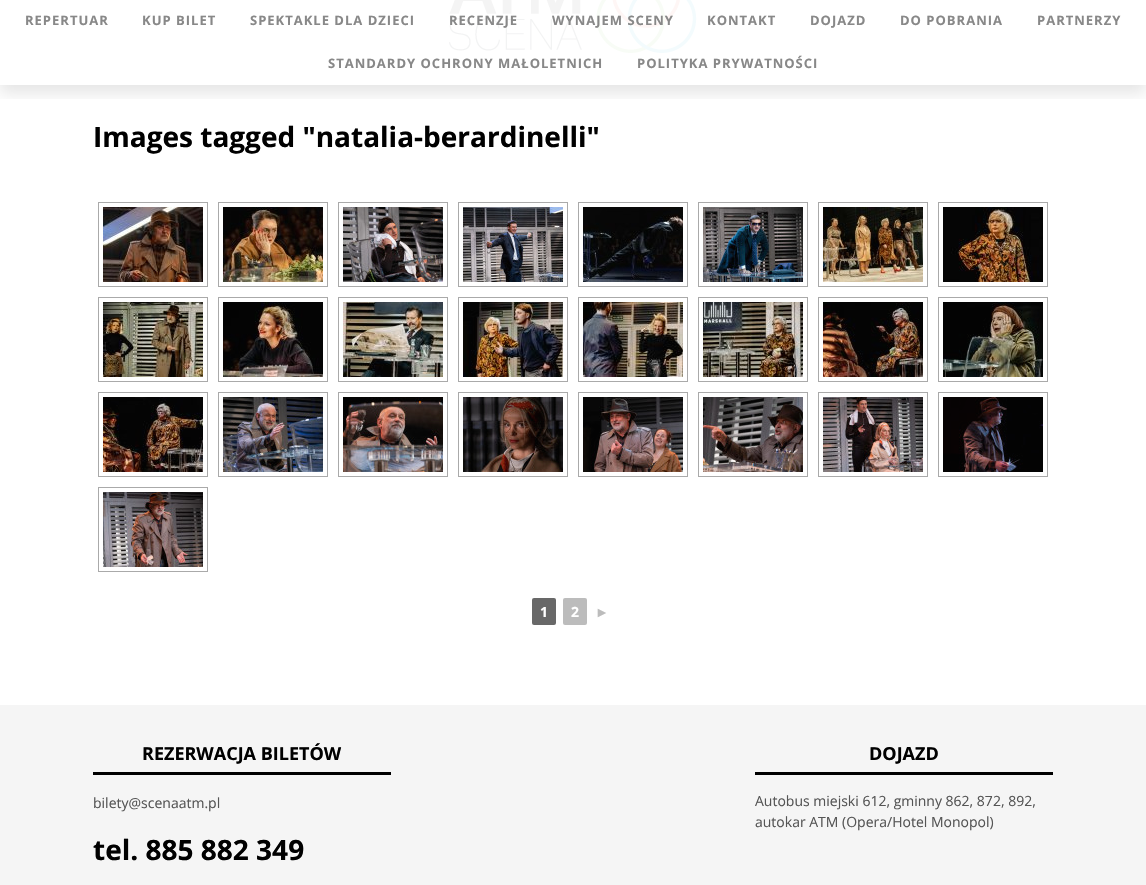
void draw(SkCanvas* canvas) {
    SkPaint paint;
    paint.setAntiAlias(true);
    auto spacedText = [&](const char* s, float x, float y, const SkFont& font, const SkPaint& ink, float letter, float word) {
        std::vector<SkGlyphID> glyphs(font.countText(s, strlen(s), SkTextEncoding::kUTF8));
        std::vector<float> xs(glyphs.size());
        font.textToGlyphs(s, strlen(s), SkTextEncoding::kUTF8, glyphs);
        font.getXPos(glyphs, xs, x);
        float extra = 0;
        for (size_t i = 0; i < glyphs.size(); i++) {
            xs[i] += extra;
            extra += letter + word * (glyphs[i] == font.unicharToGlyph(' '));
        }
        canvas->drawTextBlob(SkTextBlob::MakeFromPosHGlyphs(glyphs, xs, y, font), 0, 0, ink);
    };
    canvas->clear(0xFFFFFFFF);
    canvas->drawImageRect(SkImages::DeferredFromEncodedData(SkData::MakeFromFileName("img1.png")), SkRect::MakeXYWH(449, 0, 248, 53), SkSamplingOptions());
    canvas->save();
    canvas->clipRect(SkRect::MakeXYWH(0, 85, 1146, 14));
    paint.setColor(0x1A000000);
    paint.setMaskFilter(SkMaskFilter::MakeBlur(kNormal_SkBlurStyle, 7.5f));
    canvas->drawRect(SkRect::MakeXYWH(0, 8, 1146, 85), paint);
    paint.setMaskFilter(nullptr);
    canvas->restore();
    SkFont font1(fontMgr->matchFamilyStyle("Open Sans", SkFontStyle::Bold()), 13);
    font1.setSubpixel(true);
    paint.setColor(0xFF888888);
    spacedText("REPERTUAR", 25, 25, font1, paint, 1, 0);
    spacedText("KUP BILET", 142, 25, font1, paint, 1, 0);
    spacedText("SPEKTAKLE DLA DZIECI", 250, 25, font1, paint, 1, 0);
    spacedText("RECENZJE", 449, 25, font1, paint, 1, 0);
    spacedText("WYNAJEM SCENY", 552, 25, font1, paint, 1, 0);
    spacedText("KONTAKT", 707, 25, font1, paint, 1, 0);
    spacedText("DOJAZD", 810, 25, font1, paint, 1, 0);
    spacedText("DO POBRANIA", 900, 25, font1, paint, 1, 0);
    spacedText("PARTNERZY", 1037, 25, font1, paint, 1, 0);
    spacedText("STANDARDY OCHRONY MAŁOLETNICH", 328, 68, font1, paint, 1, 0);
    spacedText("POLITYKA PRYWATNOŚCI", 637, 68, font1, paint, 1, 0);
    SkFont font2(fontMgr->matchFamilyStyle("Open Sans", SkFontStyle::Bold()), 28);
    font2.setSubpixel(true);
    paint.setColor(0xFF000000);
    canvas->drawString("Images tagged \"natalia-berardinelli\"", 93, 147, font2, paint);
    paint.setStyle(SkPaint::kStroke_Style);
    paint.setStrokeWidth(1);
    paint.setColor(0xFFAAAAAA);
    canvas->drawRect(SkRect::MakeXYWH(98.5f, 202.5f, 109, 84), paint);
    canvas->drawImageRect(SkImages::DeferredFromEncodedData(SkData::MakeFromFileName("img2.png")), SkRect::MakeXYWH(103, 207, 100, 75), SkSamplingOptions());
    canvas->drawRect(SkRect::MakeXYWH(218.5f, 202.5f, 109, 84), paint);
    canvas->drawImageRect(SkImages::DeferredFromEncodedData(SkData::MakeFromFileName("img3.png")), SkRect::MakeXYWH(223, 207, 100, 75), SkSamplingOptions());
    canvas->drawRect(SkRect::MakeXYWH(338.5f, 202.5f, 109, 84), paint);
    canvas->drawImageRect(SkImages::DeferredFromEncodedData(SkData::MakeFromFileName("img4.png")), SkRect::MakeXYWH(343, 207, 100, 75), SkSamplingOptions());
    canvas->drawRect(SkRect::MakeXYWH(458.5f, 202.5f, 109, 84), paint);
    canvas->drawImageRect(SkImages::DeferredFromEncodedData(SkData::MakeFromFileName("img5.png")), SkRect::MakeXYWH(463, 207, 100, 75), SkSamplingOptions());
    canvas->drawRect(SkRect::MakeXYWH(578.5f, 202.5f, 109, 84), paint);
    canvas->drawImageRect(SkImages::DeferredFromEncodedData(SkData::MakeFromFileName("img6.png")), SkRect::MakeXYWH(583, 207, 100, 75), SkSamplingOptions());
    canvas->drawRect(SkRect::MakeXYWH(698.5f, 202.5f, 109, 84), paint);
    canvas->drawImageRect(SkImages::DeferredFromEncodedData(SkData::MakeFromFileName("img7.png")), SkRect::MakeXYWH(703, 207, 100, 75), SkSamplingOptions());
    canvas->drawRect(SkRect::MakeXYWH(818.5f, 202.5f, 109, 84), paint);
    canvas->drawImageRect(SkImages::DeferredFromEncodedData(SkData::MakeFromFileName("img8.png")), SkRect::MakeXYWH(823, 207, 100, 75), SkSamplingOptions());
    canvas->drawRect(SkRect::MakeXYWH(938.5f, 202.5f, 109, 84), paint);
    canvas->drawImageRect(SkImages::DeferredFromEncodedData(SkData::MakeFromFileName("img9.png")), SkRect::MakeXYWH(943, 207, 100, 75), SkSamplingOptions());
    canvas->drawRect(SkRect::MakeXYWH(98.5f, 297.5f, 109, 84), paint);
    canvas->drawImageRect(SkImages::DeferredFromEncodedData(SkData::MakeFromFileName("img10.png")), SkRect::MakeXYWH(103, 302, 100, 75), SkSamplingOptions());
    canvas->drawRect(SkRect::MakeXYWH(218.5f, 297.5f, 109, 84), paint);
    canvas->drawImageRect(SkImages::DeferredFromEncodedData(SkData::MakeFromFileName("img11.png")), SkRect::MakeXYWH(223, 302, 100, 75), SkSamplingOptions());
    canvas->drawRect(SkRect::MakeXYWH(338.5f, 297.5f, 109, 84), paint);
    canvas->drawImageRect(SkImages::DeferredFromEncodedData(SkData::MakeFromFileName("img12.png")), SkRect::MakeXYWH(343, 302, 100, 75), SkSamplingOptions());
    canvas->drawRect(SkRect::MakeXYWH(458.5f, 297.5f, 109, 84), paint);
    canvas->drawImageRect(SkImages::DeferredFromEncodedData(SkData::MakeFromFileName("img13.png")), SkRect::MakeXYWH(463, 302, 100, 75), SkSamplingOptions());
    canvas->drawRect(SkRect::MakeXYWH(578.5f, 297.5f, 109, 84), paint);
    canvas->drawImageRect(SkImages::DeferredFromEncodedData(SkData::MakeFromFileName("img14.png")), SkRect::MakeXYWH(583, 302, 100, 75), SkSamplingOptions());
    canvas->drawRect(SkRect::MakeXYWH(698.5f, 297.5f, 109, 84), paint);
    canvas->drawImageRect(SkImages::DeferredFromEncodedData(SkData::MakeFromFileName("img15.png")), SkRect::MakeXYWH(703, 302, 100, 75), SkSamplingOptions());
    canvas->drawRect(SkRect::MakeXYWH(818.5f, 297.5f, 109, 84), paint);
    canvas->drawImageRect(SkImages::DeferredFromEncodedData(SkData::MakeFromFileName("img16.png")), SkRect::MakeXYWH(823, 302, 100, 75), SkSamplingOptions());
    canvas->drawRect(SkRect::MakeXYWH(938.5f, 297.5f, 109, 84), paint);
    canvas->drawImageRect(SkImages::DeferredFromEncodedData(SkData::MakeFromFileName("img17.png")), SkRect::MakeXYWH(943, 302, 100, 75), SkSamplingOptions());
    canvas->drawRect(SkRect::MakeXYWH(98.5f, 392.5f, 109, 84), paint);
    canvas->drawImageRect(SkImages::DeferredFromEncodedData(SkData::MakeFromFileName("img18.png")), SkRect::MakeXYWH(103, 397, 100, 75), SkSamplingOptions());
    canvas->drawRect(SkRect::MakeXYWH(218.5f, 392.5f, 109, 84), paint);
    canvas->drawImageRect(SkImages::DeferredFromEncodedData(SkData::MakeFromFileName("img19.png")), SkRect::MakeXYWH(223, 397, 100, 75), SkSamplingOptions());
    canvas->drawRect(SkRect::MakeXYWH(338.5f, 392.5f, 109, 84), paint);
    canvas->drawImageRect(SkImages::DeferredFromEncodedData(SkData::MakeFromFileName("img20.png")), SkRect::MakeXYWH(343, 397, 100, 75), SkSamplingOptions());
    canvas->drawRect(SkRect::MakeXYWH(458.5f, 392.5f, 109, 84), paint);
    canvas->drawImageRect(SkImages::DeferredFromEncodedData(SkData::MakeFromFileName("img21.png")), SkRect::MakeXYWH(463, 397, 100, 75), SkSamplingOptions());
    canvas->drawRect(SkRect::MakeXYWH(578.5f, 392.5f, 109, 84), paint);
    canvas->drawImageRect(SkImages::DeferredFromEncodedData(SkData::MakeFromFileName("img22.png")), SkRect::MakeXYWH(583, 397, 100, 75), SkSamplingOptions());
    canvas->drawRect(SkRect::MakeXYWH(698.5f, 392.5f, 109, 84), paint);
    canvas->drawImageRect(SkImages::DeferredFromEncodedData(SkData::MakeFromFileName("img23.png")), SkRect::MakeXYWH(703, 397, 100, 75), SkSamplingOptions());
    canvas->drawRect(SkRect::MakeXYWH(818.5f, 392.5f, 109, 84), paint);
    canvas->drawImageRect(SkImages::DeferredFromEncodedData(SkData::MakeFromFileName("img24.png")), SkRect::MakeXYWH(823, 397, 100, 75), SkSamplingOptions());
    canvas->drawRect(SkRect::MakeXYWH(938.5f, 392.5f, 109, 84), paint);
    canvas->drawImageRect(SkImages::DeferredFromEncodedData(SkData::MakeFromFileName("img25.png")), SkRect::MakeXYWH(943, 397, 100, 75), SkSamplingOptions());
    canvas->drawRect(SkRect::MakeXYWH(98.5f, 487.5f, 109, 84), paint);
    canvas->drawImageRect(SkImages::DeferredFromEncodedData(SkData::MakeFromFileName("img26.png")), SkRect::MakeXYWH(103, 492, 100, 75), SkSamplingOptions());
    paint.setStyle(SkPaint::kFill_Style);
    paint.setColor(0xFF686868);
    canvas->drawRoundRect(SkRect::MakeXYWH(532, 598, 24, 27), 2, 2, paint);
    SkFont font3(fontMgr->matchFamilyStyle("Open Sans", SkFontStyle::Bold()), 14);
    font3.setSubpixel(true);
    paint.setColor(0xFFFFFFFF);
    canvas->drawString("1", 540, 617, font3, paint);
    paint.setColor(0xFFBCBCBC);
    canvas->drawRoundRect(SkRect::MakeXYWH(563, 598, 24, 27), 2, 2, paint);
    paint.setColor(0xFFFFFFFF);
    canvas->drawString("2", 571, 617, font3, paint);
    SkFont font4(fontMgr->matchFamilyStyle("Liberation Sans", SkFontStyle::Bold()), 14);
    font4.setSubpixel(true);
    paint.setColor(0xFFBCBCBC);
    canvas->drawString("►", 595, 617, font4, paint);
    paint.setColor(0xFFF5F5F5);
    canvas->drawRect(SkRect::MakeXYWH(0, 705, 1146, 180), paint);
    paint.setColor(0xFF000000);
    canvas->drawRect(SkRect::MakeXYWH(93, 772, 298, 3), paint);
    SkFont font5(fontMgr->matchFamilyStyle("Open Sans", SkFontStyle::Bold()), 18);
    font5.setSubpixel(true);
    canvas->drawString("REZERWACJA BILETÓW", 142, 760, font5, paint);
    SkFont font6(fontMgr->matchFamilyStyle("Open Sans", SkFontStyle::Normal()), 14);
    font6.setSubpixel(true);
    paint.setColor(0xFF555555);
    canvas->drawString("bilety@scenaatm.pl", 93, 808, font6, paint);
    paint.setColor(0xFF000000);
    canvas->drawString("tel. 885 882 349", 93, 860, font2, paint);
    canvas->drawRect(SkRect::MakeXYWH(755, 772, 298, 3), paint);
    canvas->drawString("DOJAZD", 869, 760, font5, paint);
    paint.setColor(0xFF555555);
    canvas->drawString("Autobus miejski 612, gminny 862, 872, 892,", 755, 806, font6, paint);
    canvas->drawString("autokar ATM (Opera/Hotel Monopol)", 755, 827, font6, paint);
}
